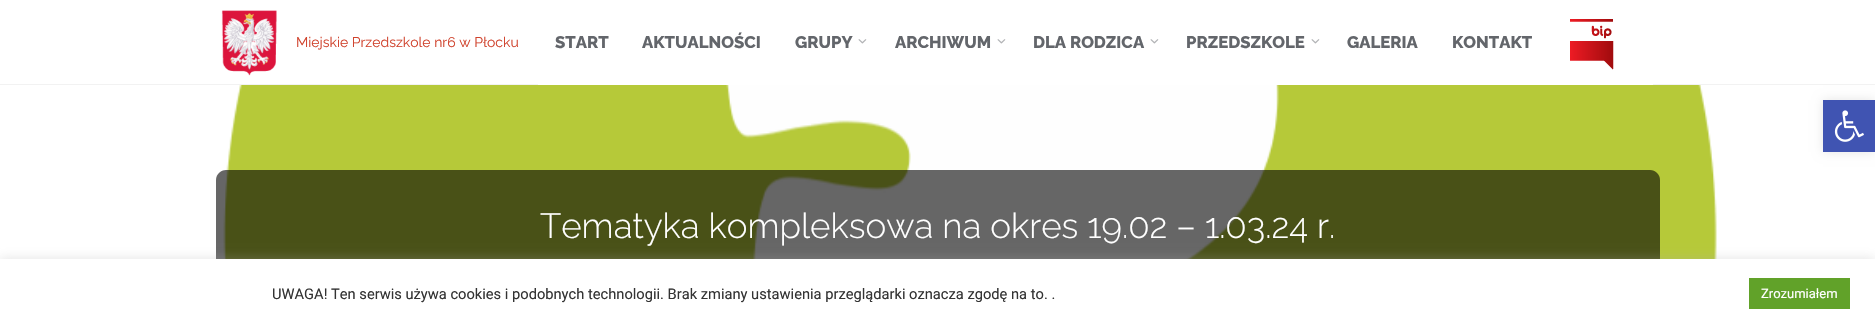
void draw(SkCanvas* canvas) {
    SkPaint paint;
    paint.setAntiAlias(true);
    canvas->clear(0xFFFFFFFF);
    paint.setColor(0xFFF2F2F2);
    canvas->drawRect(SkRect::MakeXYWH(0, 84, 1875, 1), paint);
    canvas->drawImageRect(SkImages::DeferredFromEncodedData(SkData::MakeFromFileName("img1.png")), SkRect::MakeXYWH(221, 10, 56, 66), SkSamplingOptions());
    SkFont font1(fontMgr->matchFamilyStyle("Raleway", SkFontStyle::Normal()), 14);
    font1.setSubpixel(true);
    paint.setColor(0xFFD0422C);
    canvas->drawString("Miejskie Przedszkole nr6 w Płocku", 296, 47, font1, paint);
    paint.setColor(0xFFFFFFFF);
    canvas->drawRect(SkRect::MakeXYWH(538, 84, 1115, 1), paint);
    SkFont font2(fontMgr->matchFamilyStyle("Raleway", SkFontStyle(800, SkFontStyle::kNormal_Width, SkFontStyle::kUpright_Slant)), 16.75f);
    font2.setSubpixel(true);
    paint.setColor(0xFF63666B);
    canvas->drawString("START", 555, 48, font2, paint);
    canvas->drawString("AKTUALNOŚCI", 642, 48, font2, paint);
    canvas->drawString("GRUPY", 795, 48, font2, paint);
    canvas->drawImageRect(SkImages::DeferredFromEncodedData(SkData::MakeFromFileName("img2.png")), SkRect::MakeXYWH(858, 39, 9, 5), SkSamplingOptions());
    canvas->drawString("ARCHIWUM", 895, 48, font2, paint);
    canvas->drawImageRect(SkImages::DeferredFromEncodedData(SkData::MakeFromFileName("img2.png")), SkRect::MakeXYWH(997, 39, 9, 5), SkSamplingOptions());
    canvas->drawString("DLA RODZICA", 1033, 48, font2, paint);
    canvas->drawImageRect(SkImages::DeferredFromEncodedData(SkData::MakeFromFileName("img2.png")), SkRect::MakeXYWH(1150, 39, 9, 5), SkSamplingOptions());
    canvas->drawString("PRZEDSZKOLE", 1186, 48, font2, paint);
    canvas->drawImageRect(SkImages::DeferredFromEncodedData(SkData::MakeFromFileName("img2.png")), SkRect::MakeXYWH(1311, 39, 9, 5), SkSamplingOptions());
    canvas->drawString("GALERIA", 1347, 48, font2, paint);
    canvas->drawString("KONTAKT", 1452, 48, font2, paint);
    canvas->drawImageRect(SkImages::DeferredFromEncodedData(SkData::MakeFromFileName("img3.png")), SkRect::MakeXYWH(1570, 19, 44, 51), SkSamplingOptions());
    canvas->drawImageRect(SkImages::DeferredFromEncodedData(SkData::MakeFromFileName("img4.png")), SkRect::MakeXYWH(223, 85, 1494, 174), SkSamplingOptions());
    paint.setColor(0x99000000);
    canvas->drawPath(SkPathBuilder().moveTo(226, 170).lineTo(1650, 170).cubicTo(1655.5f, 170, 1660, 174.5f, 1660, 180).lineTo(1660, 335).lineTo(216, 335).lineTo(216, 180).cubicTo(216, 174.5f, 220.5f, 170, 226, 170).close().detach(), paint);
    SkFont font3(fontMgr->matchFamilyStyle("Raleway", SkFontStyle(300, SkFontStyle::kNormal_Width, SkFontStyle::kUpright_Slant)), 35);
    font3.setSubpixel(true);
    paint.setColor(0xFFFFFFFF);
    canvas->drawString("Tematyka kompleksowa na okres 19.02 – 1.03.24 r.", 540, 238, font3, paint);
    paint.setColor(0x1A000000);
    paint.setMaskFilter(SkMaskFilter::MakeBlur(kNormal_SkBlurStyle, 5));
    canvas->drawRect(SkRect::MakeXYWH(1823, 100, 52, 52), paint);
    paint.setMaskFilter(nullptr);
    paint.setColor(0xFF4054B2);
    canvas->drawRect(SkRect::MakeXYWH(1823, 100, 52, 52), paint);
    canvas->drawImageRect(SkImages::DeferredFromEncodedData(SkData::MakeFromFileName("img5.png")), SkRect::MakeXYWH(1834, 110, 30, 32), SkSamplingOptions());
    paint.setColor(0x4DACABAB);
    paint.setMaskFilter(SkMaskFilter::MakeBlur(kNormal_SkBlurStyle, 5));
    canvas->drawRect(SkRect::MakeXYWH(0, 258, 1875, 69), paint);
    paint.setMaskFilter(nullptr);
    paint.setColor(0xFFFFFFFF);
    canvas->drawRect(SkRect::MakeXYWH(0, 259, 1875, 69), paint);
    SkFont font4(fontMgr->matchFamilyStyle("Roboto", SkFontStyle::Normal()), 14.67f);
    font4.setSubpixel(true);
    paint.setColor(0xFF333333);
    canvas->drawString("UWAGA! Ten serwis używa cookies i podobnych technologii. Brak zmiany ustawienia przeglądarki oznacza zgodę na to. .", 272, 299, font4, paint);
    paint.setColor(0xFF61A229);
    canvas->drawRect(SkRect::MakeXYWH(1749, 278, 101, 31), paint);
    SkFont font5(fontMgr->matchFamilyStyle("Roboto", SkFontStyle::Normal()), 13);
    font5.setSubpixel(true);
    paint.setColor(0xFFFFFFFF);
    canvas->drawString("Zrozumiałem", 1761, 298, font5, paint);
}
